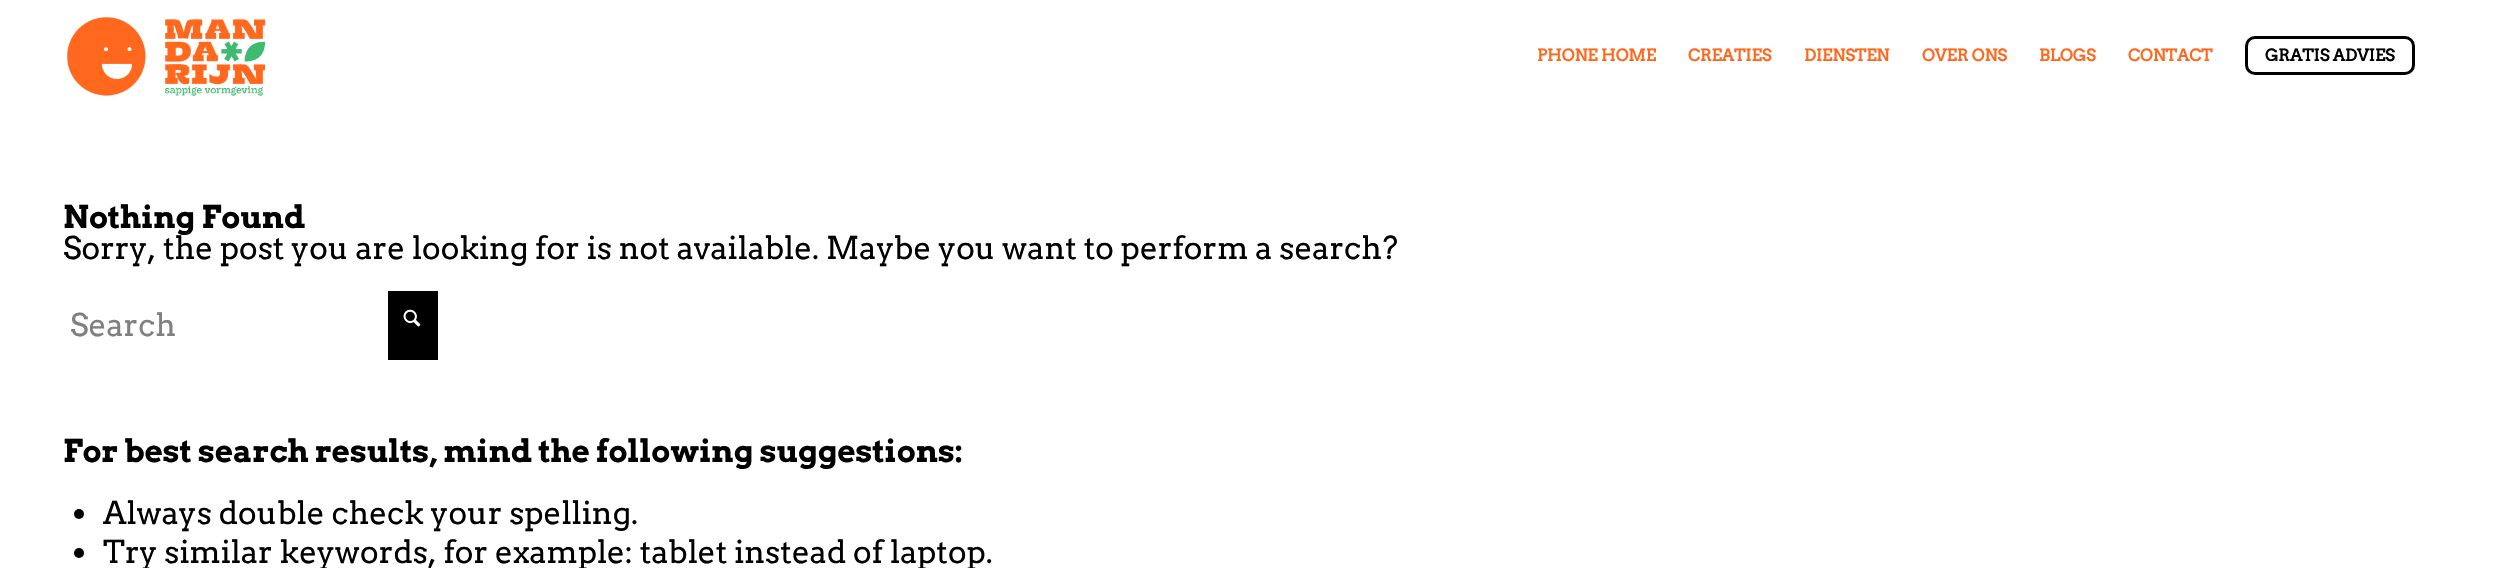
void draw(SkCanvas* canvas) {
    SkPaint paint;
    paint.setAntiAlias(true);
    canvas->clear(0xFFFFFFFF);
    canvas->drawImageRect(SkImages::DeferredFromEncodedData(SkData::MakeFromFileName("img1.png")), SkRect::MakeXYWH(67, 17, 199, 79), SkSamplingOptions());
    SkFont font1(fontMgr->matchFamilyStyle("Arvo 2", SkFontStyle::Bold()), 16.25f);
    font1.setSubpixel(true);
    paint.setColor(0xFFFF681C);
    canvas->drawString("PHONE HOME", 1537, 61, font1, paint);
    canvas->drawString("CREATIES", 1688, 61, font1, paint);
    canvas->drawString("DIENSTEN", 1804, 61, font1, paint);
    canvas->drawString("OVER ONS", 1922, 61, font1, paint);
    canvas->drawString("BLOGS", 2039, 61, font1, paint);
    canvas->drawString("CONTACT", 2128, 61, font1, paint);
    paint.setStyle(SkPaint::kStroke_Style);
    paint.setStrokeWidth(3);
    paint.setColor(0xFF000000);
    canvas->drawRoundRect(SkRect::MakeXYWH(2246.5f, 37.5f, 167, 36), 8.5f, 8.5f, paint);
    paint.setStyle(SkPaint::kFill_Style);
    canvas->drawString("GRATIS ADVIES", 2265, 61, font1, paint);
    SkFont font2(fontMgr->matchFamilyStyle("Arvo", SkFontStyle::Bold()), 31.25f);
    font2.setSubpixel(true);
    canvas->drawString("Nothing Found", 63, 228, font2, paint);
    SkFont font3(fontMgr->matchFamilyStyle("Arvo", SkFontStyle::Normal()), 31.25f);
    font3.setSubpixel(true);
    canvas->drawString("Sorry, the post you are looking for is not available. Maybe you want to perform a search?", 63, 259, font3, paint);
    canvas->drawRect(SkRect::MakeXYWH(388, 291, 50, 69), paint);
    paint.setColor(0xFF808080);
    canvas->drawString("Search", 70, 336, font3, paint);
    canvas->drawImageRect(SkImages::DeferredFromEncodedData(SkData::MakeFromFileName("img2.png")), SkRect::MakeXYWH(403, 309, 18, 18), SkSamplingOptions());
    paint.setColor(0xFF000000);
    canvas->drawString("For best search results, mind the following suggestions:", 63, 462, font2, paint);
    canvas->drawCircle(79, 514, 5, paint);
    canvas->drawString("Always double check your spelling.", 103, 524, font3, paint);
    canvas->drawCircle(79, 553, 5, paint);
    canvas->drawString("Try similar keywords, for example: tablet instead of laptop.", 103, 563, font3, paint);
}
